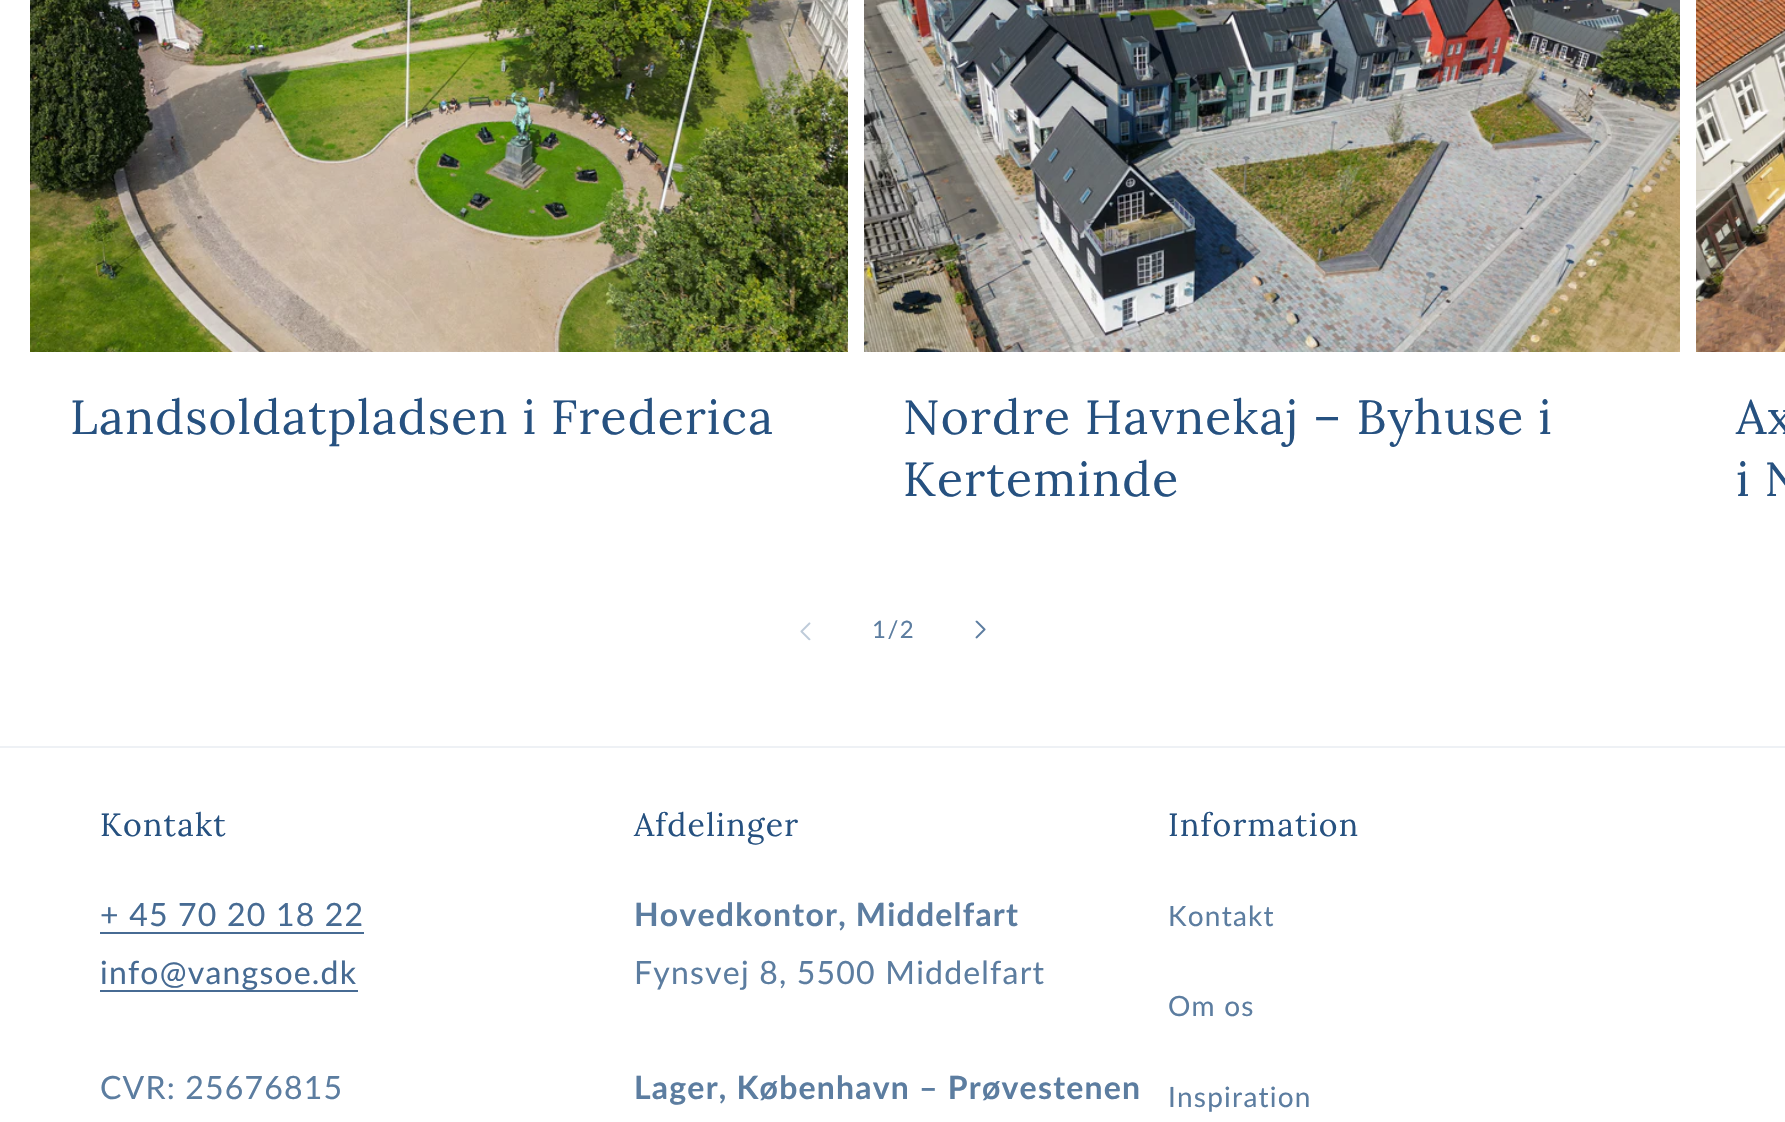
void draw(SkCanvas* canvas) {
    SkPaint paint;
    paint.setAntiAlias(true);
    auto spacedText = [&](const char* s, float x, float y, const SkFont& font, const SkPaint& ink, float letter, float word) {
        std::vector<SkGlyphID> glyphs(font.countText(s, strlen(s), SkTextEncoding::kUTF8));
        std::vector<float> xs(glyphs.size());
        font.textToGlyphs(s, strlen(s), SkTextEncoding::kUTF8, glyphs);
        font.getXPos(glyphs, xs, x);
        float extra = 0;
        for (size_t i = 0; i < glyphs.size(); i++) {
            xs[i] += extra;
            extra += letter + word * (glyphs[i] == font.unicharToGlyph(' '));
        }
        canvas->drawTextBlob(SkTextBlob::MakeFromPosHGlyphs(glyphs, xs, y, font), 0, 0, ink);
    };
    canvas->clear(0xFFFFFFFF);
    canvas->drawImageRect(SkImages::DeferredFromEncodedData(SkData::MakeFromFileName("img1.png")), SkRect::MakeXYWH(30, 0, 818, 352), SkSamplingOptions());
    SkFont font1(fontMgr->matchFamilyStyle("Lora", SkFontStyle::Normal()), 48);
    font1.setSubpixel(true);
    paint.setColor(0xFF265180);
    spacedText("Landsoldatpladsen i Frederica", 70, 434, font1, paint, 1.2f, 0);
    canvas->drawImageRect(SkImages::DeferredFromEncodedData(SkData::MakeFromFileName("img2.png")), SkRect::MakeXYWH(864, 0, 816, 352), SkSamplingOptions());
    spacedText("Nordre Havnekaj – Byhuse i", 903, 434, font1, paint, 1.2f, 0);
    spacedText("Kerteminde", 903, 496, font1, paint, 1.2f, 0);
    canvas->drawImageRect(SkImages::DeferredFromEncodedData(SkData::MakeFromFileName("img3.png")), SkRect::MakeXYWH(1696, 0, 89, 352), SkSamplingOptions());
    spacedText("Ax", 1736, 434, font1, paint, 1.2f, 0);
    spacedText("i N", 1736, 496, font1, paint, 1.2f, 0);
    canvas->drawImageRect(SkImages::DeferredFromEncodedData(SkData::MakeFromFileName("img4.png")), SkRect::MakeXYWH(800, 622, 11, 19), SkSamplingOptions());
    SkFont font2(fontMgr->matchFamilyStyle("Lato", SkFontStyle::Normal()), 24);
    font2.setSubpixel(true);
    paint.setColor(0xFF5C7DA0);
    spacedText("1/2", 872, 638, font2, paint, 1.5f, 0);
    canvas->drawImageRect(SkImages::DeferredFromEncodedData(SkData::MakeFromFileName("img5.png")), SkRect::MakeXYWH(975, 620, 11, 19), SkSamplingOptions());
    paint.setColor(0xFFEEF1F5);
    canvas->drawRect(SkRect::MakeXYWH(0, 746, 1785, 2), paint);
    SkFont font3(fontMgr->matchFamilyStyle("Lora", SkFontStyle::Normal()), 32);
    font3.setSubpixel(true);
    paint.setColor(0xFF265180);
    spacedText("Kontakt", 100, 836, font3, paint, 1.2f, 0);
    SkFont font4(fontMgr->matchFamilyStyle("Lato", SkFontStyle::Normal()), 32);
    font4.setSubpixel(true);
    paint.setColor(0xFF476B93);
    spacedText("+ 45 70 20 18 22", 100, 926, font4, paint, 1.2f, 0);
    canvas->drawRect(SkRect::MakeXYWH(100, 932, 264, 2), paint);
    spacedText("info@vangsoe.dk", 100, 984, font4, paint, 1.2f, 0);
    canvas->drawRect(SkRect::MakeXYWH(100, 990, 258, 2), paint);
    paint.setColor(0xFF5C7DA0);
    spacedText("CVR: 25676815", 100, 1099, font4, paint, 1.2f, 0);
    paint.setColor(0xFF265180);
    spacedText("Afdelinger", 634, 836, font3, paint, 1.2f, 0);
    SkFont font5(fontMgr->matchFamilyStyle("Lato", SkFontStyle::Bold()), 32);
    font5.setSubpixel(true);
    paint.setColor(0xFF5C7DA0);
    spacedText("Hovedkontor, Middelfart", 634, 926, font5, paint, 1.2f, 0);
    spacedText("Fynsvej 8, 5500 Middelfart", 634, 984, font4, paint, 1.2f, 0);
    spacedText("Lager, København – Prøvestenen", 634, 1099, font5, paint, 1.2f, 0);
    paint.setColor(0xFF265180);
    spacedText("Information", 1168, 836, font3, paint, 1.2f, 0);
    SkFont font6(fontMgr->matchFamilyStyle("Lato", SkFontStyle::Normal()), 28);
    font6.setSubpixel(true);
    paint.setColor(0xFF5C7DA0);
    spacedText("Kontakt", 1168, 926, font6, paint, 1.2f, 0);
    spacedText("Om os", 1168, 1016, font6, paint, 1.2f, 0);
    spacedText("Inspiration", 1168, 1107, font6, paint, 1.2f, 0);
}
